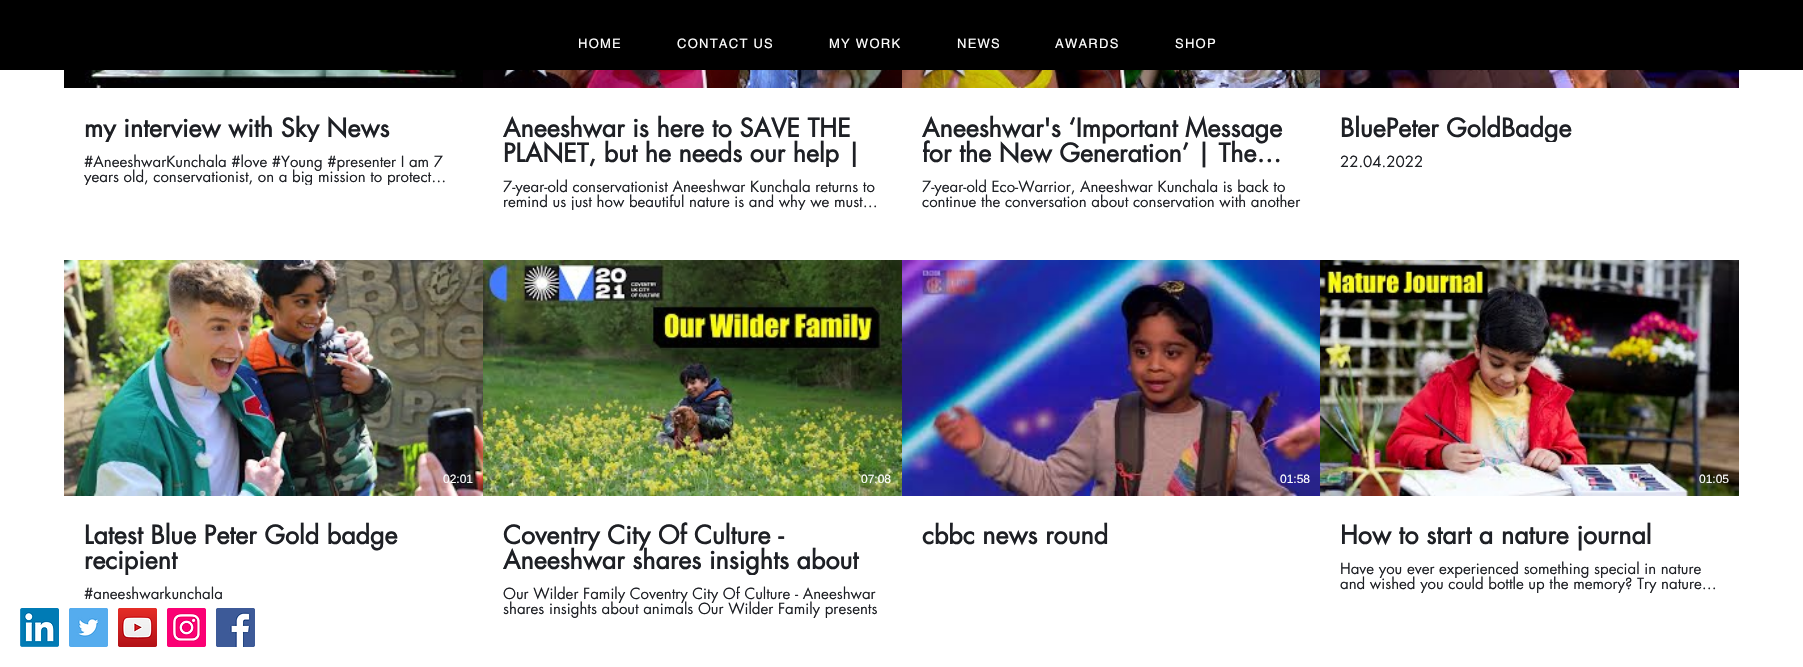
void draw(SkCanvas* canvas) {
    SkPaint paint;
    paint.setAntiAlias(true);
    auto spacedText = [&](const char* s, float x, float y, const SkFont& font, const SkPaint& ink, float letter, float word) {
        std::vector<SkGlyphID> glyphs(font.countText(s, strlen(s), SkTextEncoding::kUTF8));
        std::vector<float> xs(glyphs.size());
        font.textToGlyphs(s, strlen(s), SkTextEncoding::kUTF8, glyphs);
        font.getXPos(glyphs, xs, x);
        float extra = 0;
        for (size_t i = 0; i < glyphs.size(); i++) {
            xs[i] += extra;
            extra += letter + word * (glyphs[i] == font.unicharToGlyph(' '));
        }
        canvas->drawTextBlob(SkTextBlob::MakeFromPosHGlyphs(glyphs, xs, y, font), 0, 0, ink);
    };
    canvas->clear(0xFFFFFFFF);
    paint.setColor(0xFF000000);
    canvas->drawRect(SkRect::MakeXYWH(0, 0, 1803, 70), paint);
    SkFont font1(fontMgr->matchFamilyStyle("helvetica", SkFontStyle::Normal()), 13);
    font1.setSubpixel(true);
    paint.setColor(0xFFFFFFFF);
    spacedText("HOME", 578, 48, font1, paint, 1.25f, 0);
    spacedText("CONTACT US", 677, 48, font1, paint, 1.25f, 0);
    spacedText("MY WORK", 829, 48, font1, paint, 1.25f, 0);
    spacedText("NEWS", 957, 48, font1, paint, 1.25f, 0);
    spacedText("AWARDS", 1055, 48, font1, paint, 1.25f, 0);
    spacedText("SHOP", 1175, 48, font1, paint, 1.25f, 0);
    canvas->drawImageRect(SkImages::DeferredFromEncodedData(SkData::MakeFromFileName("img1.png")), SkRect::MakeXYWH(64, 70, 419, 18), SkSamplingOptions());
    canvas->drawImageRect(SkImages::DeferredFromEncodedData(SkData::MakeFromFileName("img2.png")), SkRect::MakeXYWH(91, 70, 365, 18), SkSamplingOptions());
    canvas->save();
    canvas->clipRect(SkRect::MakeXYWH(84, 112, 379, 30));
    SkFont font2(fontMgr->matchFamilyStyle("futura", SkFontStyle::Bold()), 25);
    font2.setSubpixel(true);
    paint.setColor(0xFF1E2025);
    canvas->drawString("my interview with Sky News", 84, 137, font2, paint);
    canvas->restore();
    SkFont font3(fontMgr->matchFamilyStyle("futura", SkFontStyle::Normal()), 15);
    font3.setSubpixel(true);
    canvas->drawString("#AneeshwarKunchala #love #Young #presenter I am 7", 84, 167, font3, paint);
    canvas->save();
    canvas->clipRect(SkRect::MakeXYWH(84, 152, 379, 33));
    canvas->drawString("years old, conservationist, on a big mission to protect…", 84, 182, font3, paint);
    canvas->restore();
    canvas->drawImageRect(SkImages::DeferredFromEncodedData(SkData::MakeFromFileName("img3.png")), SkRect::MakeXYWH(483, 70, 419, 18), SkSamplingOptions());
    canvas->drawImageRect(SkImages::DeferredFromEncodedData(SkData::MakeFromFileName("img4.png")), SkRect::MakeXYWH(491, 70, 403, 18), SkSamplingOptions());
    canvas->drawString("Aneeshwar is here to SAVE THE", 503, 137, font2, paint);
    canvas->save();
    canvas->clipRect(SkRect::MakeXYWH(503, 112, 379, 55));
    canvas->drawString("PLANET, but he needs our help |", 503, 162, font2, paint);
    canvas->restore();
    canvas->drawString("7-year-old conservationist Aneeshwar Kunchala returns to", 503, 192, font3, paint);
    canvas->save();
    canvas->clipRect(SkRect::MakeXYWH(503, 177, 379, 33));
    canvas->drawString("remind us just how beautiful nature is and why we must…", 503, 207, font3, paint);
    canvas->restore();
    canvas->drawImageRect(SkImages::DeferredFromEncodedData(SkData::MakeFromFileName("img5.png")), SkRect::MakeXYWH(902, 70, 418, 18), SkSamplingOptions());
    canvas->drawString("Aneeshwar's ‘Important Message", 922, 137, font2, paint);
    canvas->drawString("for the New Generation’ | The…", 922, 162, font2, paint);
    canvas->drawString("7-year-old Eco-Warrior, Aneeshwar Kunchala is back to", 922, 192, font3, paint);
    canvas->drawString("continue the conversation about conservation with another", 922, 207, font3, paint);
    canvas->drawImageRect(SkImages::DeferredFromEncodedData(SkData::MakeFromFileName("img6.png")), SkRect::MakeXYWH(1320, 70, 419, 18), SkSamplingOptions());
    canvas->drawImageRect(SkImages::DeferredFromEncodedData(SkData::MakeFromFileName("img7.png")), SkRect::MakeXYWH(1363, 70, 275, 18), SkSamplingOptions());
    canvas->save();
    canvas->clipRect(SkRect::MakeXYWH(1340, 112, 379, 30));
    canvas->drawString("BluePeter GoldBadge", 1340, 137, font2, paint);
    canvas->restore();
    canvas->drawString("22.04.2022", 1340, 167, font3, paint);
    canvas->drawImageRect(SkImages::DeferredFromEncodedData(SkData::MakeFromFileName("img8.png")), SkRect::MakeXYWH(64, 260, 419, 236), SkSamplingOptions());
    SkFont font4(fontMgr->matchFamilyStyle("Liberation Sans", SkFontStyle::Normal()), 12);
    font4.setSubpixel(true);
    paint.setColor(0xFFFFFFFF);
    canvas->drawString("02:01", 443, 483, font4, paint);
    paint.setColor(0xFF1E2025);
    canvas->drawString("Latest Blue Peter Gold badge", 84, 544, font2, paint);
    canvas->save();
    canvas->clipRect(SkRect::MakeXYWH(84, 520, 379, 55));
    canvas->drawString("recipient", 84, 569, font2, paint);
    canvas->restore();
    canvas->drawString("#aneeshwarkunchala", 84, 599, font3, paint);
    canvas->drawImageRect(SkImages::DeferredFromEncodedData(SkData::MakeFromFileName("img9.png")), SkRect::MakeXYWH(483, 260, 419, 236), SkSamplingOptions());
    paint.setColor(0xFFFFFFFF);
    canvas->drawString("07:08", 861, 483, font4, paint);
    paint.setColor(0xFF1E2025);
    canvas->drawString("Coventry City Of Culture -", 503, 544, font2, paint);
    canvas->save();
    canvas->clipRect(SkRect::MakeXYWH(503, 520, 379, 55));
    canvas->drawString("Aneeshwar shares insights about", 503, 569, font2, paint);
    canvas->restore();
    canvas->drawString("Our Wilder Family Coventry City Of Culture - Aneeshwar", 503, 599, font3, paint);
    canvas->drawString("shares insights about animals Our Wilder Family presents", 503, 614, font3, paint);
    canvas->drawImageRect(SkImages::DeferredFromEncodedData(SkData::MakeFromFileName("img10.png")), SkRect::MakeXYWH(902, 260, 2, 236), SkSamplingOptions());
    canvas->drawImageRect(SkImages::DeferredFromEncodedData(SkData::MakeFromFileName("img11.png")), SkRect::MakeXYWH(904, 260, 416, 236), SkSamplingOptions());
    paint.setColor(0xFFFFFFFF);
    canvas->drawString("01:58", 1280, 483, font4, paint);
    paint.setColor(0xFF1E2025);
    canvas->drawString("cbbc news round", 922, 544, font2, paint);
    canvas->drawImageRect(SkImages::DeferredFromEncodedData(SkData::MakeFromFileName("img12.png")), SkRect::MakeXYWH(1320, 260, 419, 236), SkSamplingOptions());
    paint.setColor(0xFFFFFFFF);
    canvas->drawString("01:05", 1699, 483, font4, paint);
    paint.setColor(0xFF1E2025);
    canvas->drawString("How to start a nature journal", 1340, 544, font2, paint);
    canvas->drawString("Have you ever experienced something special in nature", 1340, 574, font3, paint);
    canvas->drawString("and wished you could bottle up the memory? Try nature…", 1340, 589, font3, paint);
    canvas->drawImageRect(SkImages::DeferredFromEncodedData(SkData::MakeFromFileName("img13.png")), SkRect::MakeXYWH(20, 608, 39, 39), SkSamplingOptions());
    canvas->drawImageRect(SkImages::DeferredFromEncodedData(SkData::MakeFromFileName("img14.png")), SkRect::MakeXYWH(69, 608, 39, 39), SkSamplingOptions());
    canvas->drawImageRect(SkImages::DeferredFromEncodedData(SkData::MakeFromFileName("img15.png")), SkRect::MakeXYWH(118, 608, 39, 39), SkSamplingOptions());
    canvas->drawImageRect(SkImages::DeferredFromEncodedData(SkData::MakeFromFileName("img16.png")), SkRect::MakeXYWH(167, 608, 39, 39), SkSamplingOptions());
    canvas->drawImageRect(SkImages::DeferredFromEncodedData(SkData::MakeFromFileName("img17.png")), SkRect::MakeXYWH(216, 608, 39, 39), SkSamplingOptions());
}
